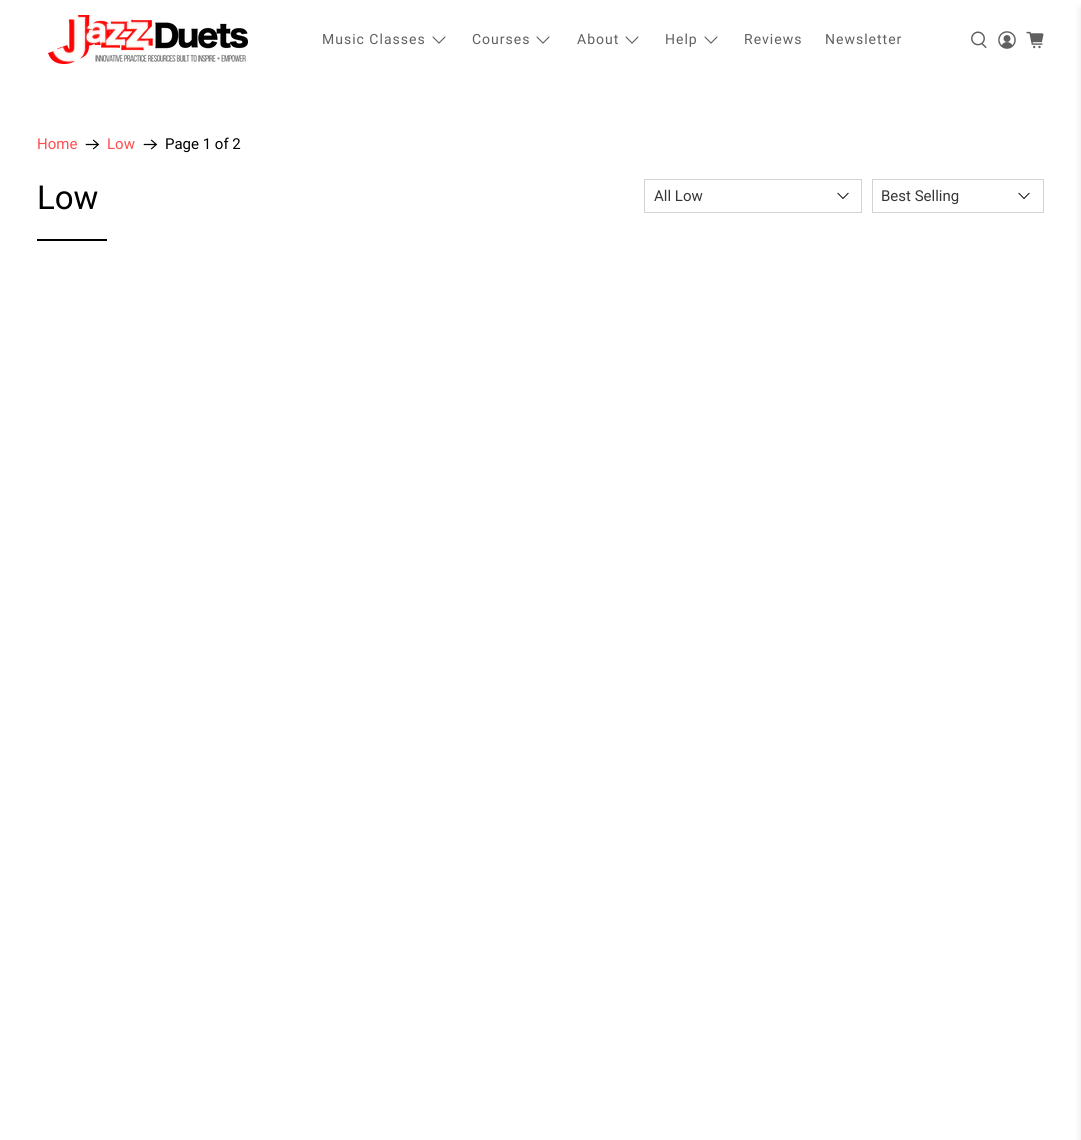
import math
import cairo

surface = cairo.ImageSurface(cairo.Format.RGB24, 1081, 1140)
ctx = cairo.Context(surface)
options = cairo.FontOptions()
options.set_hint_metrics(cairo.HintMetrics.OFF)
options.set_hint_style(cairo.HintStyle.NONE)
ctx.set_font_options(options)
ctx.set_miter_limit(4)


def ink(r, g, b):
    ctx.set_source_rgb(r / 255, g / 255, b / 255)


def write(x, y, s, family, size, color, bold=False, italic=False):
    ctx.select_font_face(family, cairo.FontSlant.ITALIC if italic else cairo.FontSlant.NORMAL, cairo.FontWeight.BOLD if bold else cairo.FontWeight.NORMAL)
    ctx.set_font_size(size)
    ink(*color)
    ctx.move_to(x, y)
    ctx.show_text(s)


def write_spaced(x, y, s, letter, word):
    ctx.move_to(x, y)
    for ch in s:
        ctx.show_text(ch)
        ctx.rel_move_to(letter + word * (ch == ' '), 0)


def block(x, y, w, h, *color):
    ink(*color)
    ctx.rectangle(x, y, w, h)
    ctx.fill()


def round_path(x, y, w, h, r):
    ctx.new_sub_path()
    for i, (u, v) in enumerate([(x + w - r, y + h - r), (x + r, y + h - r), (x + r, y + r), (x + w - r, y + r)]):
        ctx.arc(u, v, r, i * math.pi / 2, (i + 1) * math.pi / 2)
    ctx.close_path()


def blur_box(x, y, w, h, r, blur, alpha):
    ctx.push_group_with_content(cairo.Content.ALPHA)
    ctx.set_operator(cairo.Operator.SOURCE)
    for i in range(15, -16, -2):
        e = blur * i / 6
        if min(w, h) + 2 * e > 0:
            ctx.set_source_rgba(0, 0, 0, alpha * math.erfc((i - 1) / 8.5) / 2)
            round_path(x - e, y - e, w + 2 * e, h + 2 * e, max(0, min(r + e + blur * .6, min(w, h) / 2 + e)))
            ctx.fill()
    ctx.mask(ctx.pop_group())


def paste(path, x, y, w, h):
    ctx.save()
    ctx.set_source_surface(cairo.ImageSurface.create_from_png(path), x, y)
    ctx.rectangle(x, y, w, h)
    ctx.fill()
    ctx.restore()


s1 = dict(family="Roboto", size=15, color=(254, 77, 78))
s2 = dict(family="Roboto", size=15, color=(0, 0, 0))
s3 = dict(family="Roboto", size=33, color=(0, 0, 0))
s4 = dict(family="Roboto", size=15, color=(54, 54, 54))

ink(255, 255, 255)
ctx.paint()
paste("pic1.png", 48, 15, 200, 49)
ctx.select_font_face("Roboto")
ctx.set_font_size(14)
ink(96, 96, 96)
write_spaced(322, 44, "Music Classes", 1, 0)
paste("pic2.png", 432, 36, 14, 8)
write_spaced(472, 44, "Courses", 1, 0)
paste("pic2.png", 536, 36, 14, 8)
write_spaced(577, 44, "About", 1, 0)
paste("pic2.png", 625, 36, 14, 8)
write_spaced(665, 44, "Help", 1, 0)
paste("pic2.png", 704, 36, 14, 8)
write_spaced(744, 44, "Reviews", 1, 0)
write_spaced(825, 44, "Newsletter", 1, 0)
paste("pic3.png", 971, 31, 16, 18)
paste("pic4.png", 998, 31, 18, 18)
paste("pic5.png", 1026, 31, 18, 18)
ink(10, 10, 10)
blur_box(1081, 8, 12, 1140, 0, 4, 0.1)
write(37, 149, "Home", **s1)
paste("pic6.png", 85, 139, 15, 11)
write(107, 149, "Low", **s1)
paste("pic6.png", 143, 139, 15, 11)
write(165, 149, "Page 1 of 2", **s2)
write(37, 209, "Low", **s3)
block(37, 239, 70, 2, 0, 0, 0)
ctx.rectangle(644.5, 179.5, 217, 33)
ink(211, 211, 211)
ctx.set_line_width(1)
ctx.stroke()
write(654, 201, "All Low", **s4)
paste("pic7.png", 837, 192, 12, 7)
ctx.rectangle(872.5, 179.5, 171, 33)
ink(211, 211, 211)
ctx.stroke()
write(881, 201, "Best Selling", **s4)
paste("pic7.png", 1018, 192, 12, 7)
surface.write_to_png("screenshot.png")
